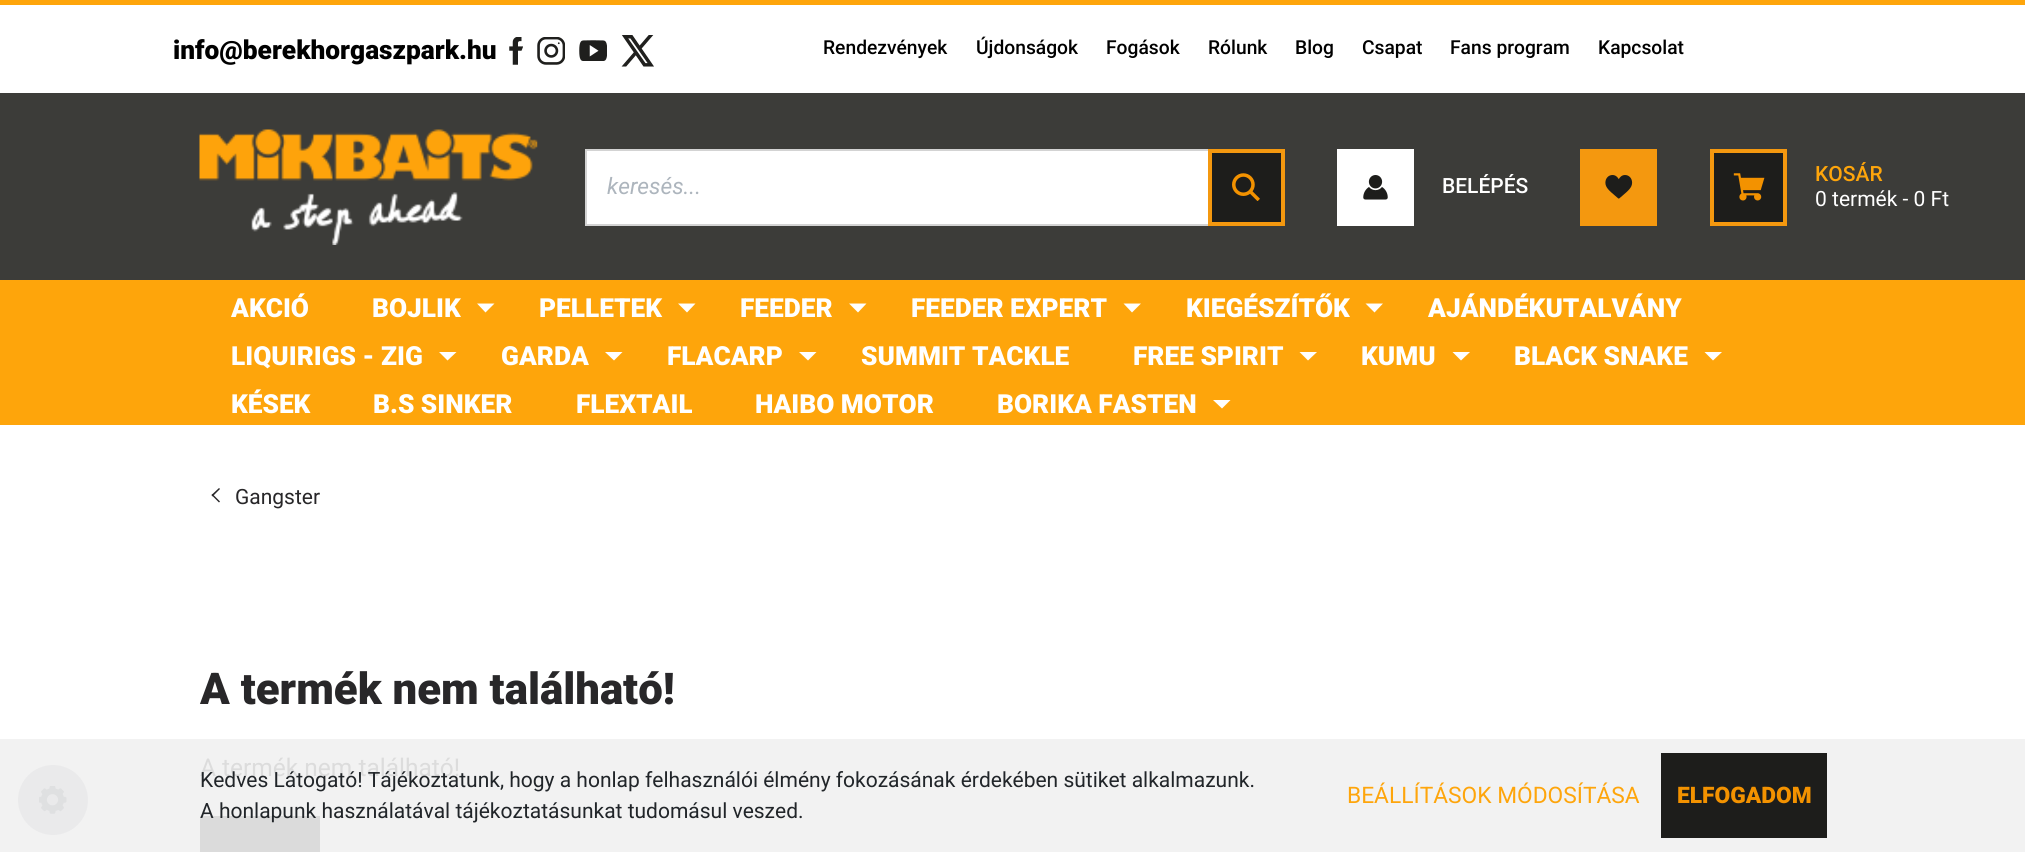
import math
import cairo

surface = cairo.ImageSurface(cairo.Format.RGB24, 2025, 852)
ctx = cairo.Context(surface)
options = cairo.FontOptions()
options.set_hint_metrics(cairo.HintMetrics.OFF)
options.set_hint_style(cairo.HintStyle.NONE)
ctx.set_font_options(options)
ctx.set_miter_limit(4)


def ink(r, g, b):
    ctx.set_source_rgb(r / 255, g / 255, b / 255)


def write(x, y, s, family, size, color, bold=False, italic=False):
    ctx.select_font_face(family, cairo.FontSlant.ITALIC if italic else cairo.FontSlant.NORMAL, cairo.FontWeight.BOLD if bold else cairo.FontWeight.NORMAL)
    ctx.set_font_size(size)
    ink(*color)
    ctx.move_to(x, y)
    ctx.show_text(s)


def block(x, y, w, h, *color):
    ink(*color)
    ctx.rectangle(x, y, w, h)
    ctx.fill()


def paste(path, x, y, w, h):
    ctx.save()
    ctx.set_source_surface(cairo.ImageSurface.create_from_png(path), x, y)
    ctx.rectangle(x, y, w, h)
    ctx.fill()
    ctx.restore()


s1 = dict(family="Roboto Black", size=26.25, color=(0, 0, 0))
s2 = dict(family="Roboto Medium", size=19.25, color=(0, 0, 0))
s3 = dict(family="Roboto", size=22.75, color=(173, 181, 189), italic=True)
s4 = dict(family="Roboto Medium", size=21, color=(255, 255, 255))
s5 = dict(family="Roboto Medium", size=21, color=(254, 165, 11))
s6 = dict(family="Roboto", size=21, color=(255, 255, 255))
s7 = dict(family="Roboto Black", size=26.25, color=(255, 255, 255))
s8 = dict(family="Roboto", size=21, color=(40, 39, 41))
s9 = dict(family="Roboto Black", size=43.75, color=(40, 39, 41))
s10 = dict(family="Roboto", size=24.5, color=(220, 220, 220))
s11 = dict(family="Roboto", size=21, color=(33, 37, 41))
s12 = dict(family="Roboto", size=22.75, color=(254, 165, 11))
s13 = dict(family="Roboto Black", size=22.75, color=(243, 146, 0))

ink(255, 255, 255)
ctx.paint()
block(0, 739, 2025, 113, 242, 242, 242)
block(0, 0, 2025, 5, 254, 165, 11)
write(173, 59, "info@berekhorgaszpark.hu", **s1)
paste("pic1.png", 509, 37, 14, 28)
paste("pic2.png", 537, 37, 28, 28)
paste("pic3.png", 579, 40, 28, 21)
paste("pic4.png", 621, 35, 33, 32)
write(823, 54, "Rendezvények", **s2)
write(976, 54, "Újdonságok", **s2)
write(1106, 54, "Fogások", **s2)
write(1208, 54, "Rólunk", **s2)
write(1295, 54, "Blog", **s2)
write(1362, 54, "Csapat", **s2)
write(1450, 54, "Fans program", **s2)
write(1598, 54, "Kapcsolat", **s2)
block(0, 93, 2025, 187, 60, 60, 57)
paste("pic5.png", 199, 129, 339, 116)
block(587, 151, 621, 73, 255, 255, 255)
ctx.rectangle(586, 150, 698, 75)
ink(211, 211, 211)
ctx.stroke()
write(607, 194, "keresés...", **s3)
ink(29, 29, 27)
ctx.rectangle(1210, 151, 73, 73)
ctx.fill_preserve()
ink(244, 152, 15)
ctx.set_line_width(4)
ctx.stroke()
paste("pic6.png", 1232, 173, 28, 28)
block(1337, 149, 77, 77, 255, 255, 255)
paste("pic7.png", 1363, 175, 25, 25)
write(1442, 193, "BELÉPÉS", **s4)
block(1580, 149, 77, 77, 244, 152, 15)
paste("pic8.png", 1605, 175, 28, 24)
ink(29, 29, 27)
ctx.rectangle(1712, 151, 73, 73)
ctx.fill_preserve()
ink(244, 152, 15)
ctx.stroke()
paste("pic9.png", 1733, 173, 32, 28)
write(1815, 181, "KOSÁR", **s5)
write(1815, 206, "0 termék - 0 Ft", **s6)
block(0, 280, 2025, 145, 254, 165, 11)
write(231, 317, "AKCIÓ", **s7)
write(372, 317, "BOJLIK", **s7)
ctx.new_path()
ctx.move_to(477, 303.5)
ctx.line_to(494.5, 303.5)
ctx.line_to(485.5, 312.5)
ctx.close_path()
ctx.fill()
write(539, 317, "PELLETEK", **s7)
ctx.new_path()
ctx.move_to(678, 303.5)
ctx.line_to(695.5, 303.5)
ctx.line_to(687, 312.5)
ctx.close_path()
ctx.fill()
write(740, 317, "FEEDER", **s7)
ctx.new_path()
ctx.move_to(849, 303.5)
ctx.line_to(866.5, 303.5)
ctx.line_to(858, 312.5)
ctx.close_path()
ctx.fill()
write(911, 317, "FEEDER EXPERT", **s7)
ctx.new_path()
ctx.move_to(1123.5, 303.5)
ctx.line_to(1141, 303.5)
ctx.line_to(1132, 312.5)
ctx.close_path()
ctx.fill()
write(1186, 317, "KIEGÉSZÍTŐK", **s7)
ctx.new_path()
ctx.move_to(1365.5, 303.5)
ctx.line_to(1383, 303.5)
ctx.line_to(1374.5, 312.5)
ctx.close_path()
ctx.fill()
write(1428, 317, "AJÁNDÉKUTALVÁNY", **s7)
write(231, 365, "LIQUIRIGS - ZIG", **s7)
ctx.new_path()
ctx.move_to(439, 352)
ctx.line_to(456.5, 352)
ctx.line_to(447.5, 360.5)
ctx.close_path()
ctx.fill()
write(501, 365, "GARDA", **s7)
ctx.new_path()
ctx.move_to(605, 352)
ctx.line_to(622.5, 352)
ctx.line_to(614, 360.5)
ctx.close_path()
ctx.fill()
write(667, 365, "FLACARP", **s7)
ctx.new_path()
ctx.move_to(799, 352)
ctx.line_to(816.5, 352)
ctx.line_to(808, 360.5)
ctx.close_path()
ctx.fill()
write(861, 365, "SUMMIT TACKLE", **s7)
write(1133, 365, "FREE SPIRIT", **s7)
ctx.new_path()
ctx.move_to(1299.5, 352)
ctx.line_to(1317, 352)
ctx.line_to(1308, 360.5)
ctx.close_path()
ctx.fill()
write(1361, 365, "KUMU", **s7)
ctx.new_path()
ctx.move_to(1452.5, 352)
ctx.line_to(1470, 352)
ctx.line_to(1461, 360.5)
ctx.close_path()
ctx.fill()
write(1514, 365, "BLACK SNAKE", **s7)
ctx.new_path()
ctx.move_to(1704.5, 352)
ctx.line_to(1722, 352)
ctx.line_to(1713, 360.5)
ctx.close_path()
ctx.fill()
write(231, 413, "KÉSEK", **s7)
write(373, 413, "B.S SINKER", **s7)
write(576, 413, "FLEXTAIL", **s7)
write(755, 413, "HAIBO MOTOR", **s7)
write(997, 413, "BORIKA FASTEN", **s7)
ctx.new_path()
ctx.move_to(1213, 400)
ctx.line_to(1230.5, 400)
ctx.line_to(1222, 408.5)
ctx.close_path()
ctx.fill()
ink(40, 39, 41)
ctx.new_path()
ctx.move_to(220, 501.5)
ctx.line_to(219, 502.5)
ctx.line_to(211.5, 495)
ctx.line_to(212.5, 494)
ctx.close_path()
ctx.fill()
ctx.new_path()
ctx.move_to(220, 489)
ctx.line_to(212.5, 496.5)
ctx.line_to(211.5, 495)
ctx.line_to(219, 488)
ctx.close_path()
ctx.fill()
write(235, 504, "Gangster", **s8)
write(200, 704, "A termék nem található!", **s9)
write(200, 776, "A termék nem található!", **s10)
block(200, 816, 120, 36, 219, 219, 219)
ink(234, 234, 235)
ctx.new_path()
ctx.arc(53, 800, 35, 0, 2 * math.pi)
ctx.fill()
paste("pic10.png", 39, 786, 28, 28)
write(200, 787, "Kedves Látogató! Tájékoztatunk, hogy a honlap felhasználói élmény fokozásának érdekében sütiket alkalmazunk.", **s11)
write(200, 818, "A honlapunk használatával tájékoztatásunkat tudomásul veszed.", **s11)
write(1347, 803, "BEÁLLÍTÁSOK MÓDOSÍTÁSA", **s12)
block(1661, 753, 166, 85, 29, 29, 27)
write(1677, 803, "ELFOGADOM", **s13)
surface.write_to_png("screenshot.png")
